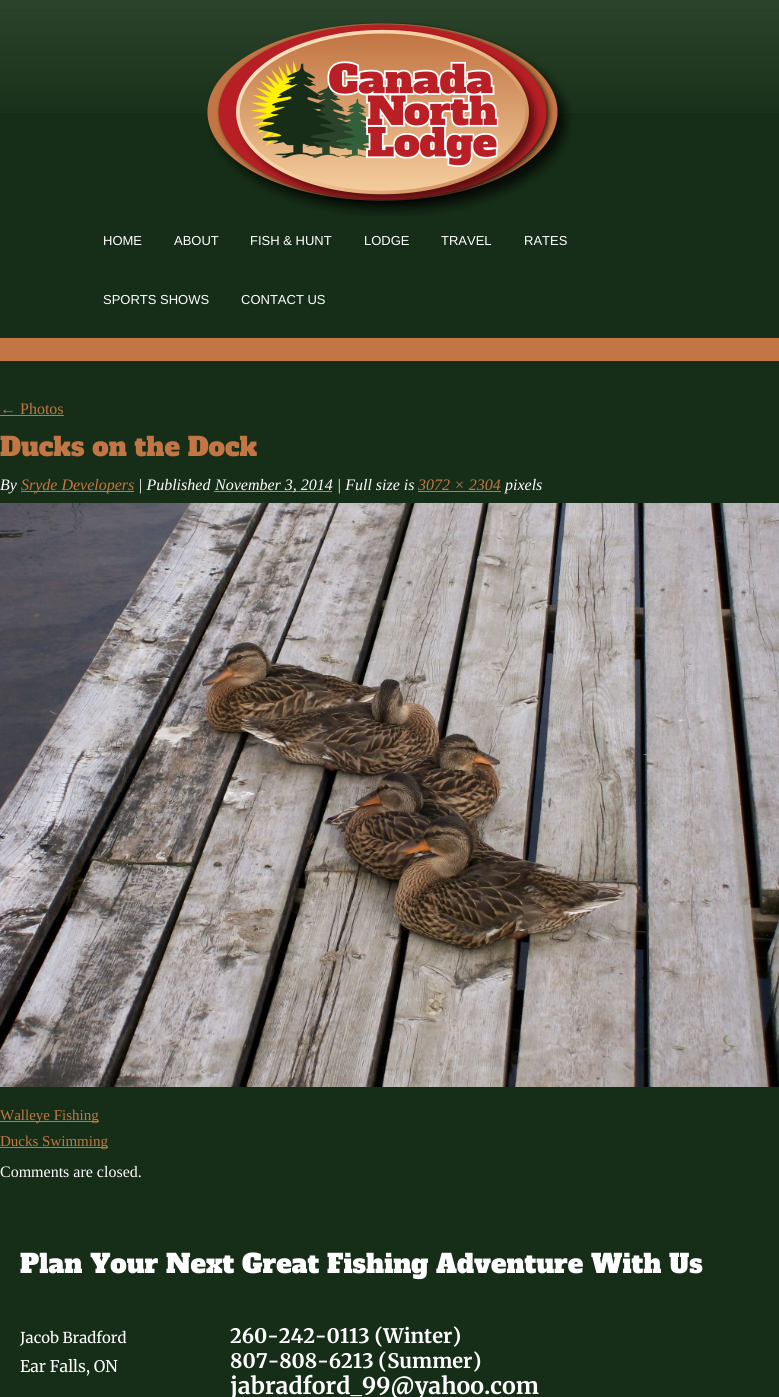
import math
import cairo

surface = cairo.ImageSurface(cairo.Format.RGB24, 779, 1397)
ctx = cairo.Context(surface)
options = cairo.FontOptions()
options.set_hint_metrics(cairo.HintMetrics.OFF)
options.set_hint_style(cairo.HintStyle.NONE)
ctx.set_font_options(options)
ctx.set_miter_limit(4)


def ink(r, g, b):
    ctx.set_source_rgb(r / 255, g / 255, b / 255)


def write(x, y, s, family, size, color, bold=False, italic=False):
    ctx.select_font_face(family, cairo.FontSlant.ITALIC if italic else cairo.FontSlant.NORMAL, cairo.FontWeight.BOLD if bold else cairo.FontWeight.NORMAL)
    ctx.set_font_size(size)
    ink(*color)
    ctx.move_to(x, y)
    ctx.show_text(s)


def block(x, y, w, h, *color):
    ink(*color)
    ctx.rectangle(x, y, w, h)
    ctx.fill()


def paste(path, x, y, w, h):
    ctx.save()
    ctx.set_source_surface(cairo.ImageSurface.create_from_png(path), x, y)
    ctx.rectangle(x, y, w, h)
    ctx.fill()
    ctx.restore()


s1 = dict(family="Liberation Sans", size=13, color=(255, 255, 255))
s2 = dict(family="Liberation Serif", size=16, color=(194, 118, 68))
s3 = dict(family="Alfa Slab One", size=26, color=(194, 118, 68))
s4 = dict(family="Liberation Serif", size=16, color=(255, 255, 255), italic=True)
s5 = dict(family="Liberation Serif", size=16, color=(194, 118, 68), italic=True)
s6 = dict(family="Liberation Serif", size=15, color=(194, 118, 68))
s7 = dict(family="Liberation Serif", size=16, color=(255, 255, 255))
s8 = dict(family="Alfa Slab One", size=26, color=(255, 255, 255))
s9 = dict(family="Merriweather", size=15, color=(255, 255, 255))
s10 = dict(family="Merriweather", size=16, color=(255, 255, 255))
s11 = dict(family="Merriweather", size=20, color=(255, 255, 255), bold=True)
s12 = dict(family="Merriweather", size=23, color=(255, 255, 255), bold=True)

ink(22, 46, 23)
ctx.paint()
paste("pic1.png", 0, 0, 779, 113)
block(0, 338, 779, 23, 194, 118, 68)
paste("pic2.png", 207, 22, 365, 194)
write(103, 245, "HOME", **s1)
write(174, 245, "ABOUT", **s1)
write(250, 245, "FISH & HUNT", **s1)
write(364, 245, "LODGE", **s1)
write(441, 245, "TRAVEL", **s1)
write(524, 245, "RATES", **s1)
write(103, 304, "SPORTS SHOWS", **s1)
write(241, 304, "CONTACT US", **s1)
write(0, 414, "← Photos", **s2)
block(0, 415, 64, 1, 194, 118, 68)
write(0, 456, "Ducks on the Dock", **s3)
write(0, 490, "By", **s4)
block(21, 491, 113, 1, 194, 118, 68)
write(21, 490, "Sryde Developers", **s5)
write(138, 490, "| Published", **s4)
ctx.new_path()
ctx.move_to(214.5, 491.5)
ctx.line_to(332.5, 491.5)
ctx.set_line_width(1)
ctx.set_dash([1, 1])
ctx.stroke()
write(215, 490, "November 3, 2014 | Full size is", **s4)
write(418, 490, "3072 × 2304", **s5)
block(418, 491, 83, 1, 194, 118, 68)
write(505, 490, "pixels", **s4)
paste("pic3.png", 0, 503, 779, 584)
block(0, 1121, 99, 1, 194, 118, 68)
write(0, 1120, "Walleye Fishing", **s6)
block(0, 1147, 108, 1, 194, 118, 68)
write(0, 1146, "Ducks Swimming", **s6)
write(0, 1177, "Comments are closed.", **s7)
write(20, 1273, "Plan Your Next Great Fishing Adventure With Us", **s8)
write(20, 1343, "Jacob Bradford", **s9)
write(20, 1372, "Ear Falls, ON", **s10)
write(230, 1343, "260-242-0113 (Winter)", **s11)
write(230, 1368, "807-808-6213 (Summer)", **s11)
write(230, 1394, "jabradford_99@yahoo.com", **s12)
surface.write_to_png("screenshot.png")
